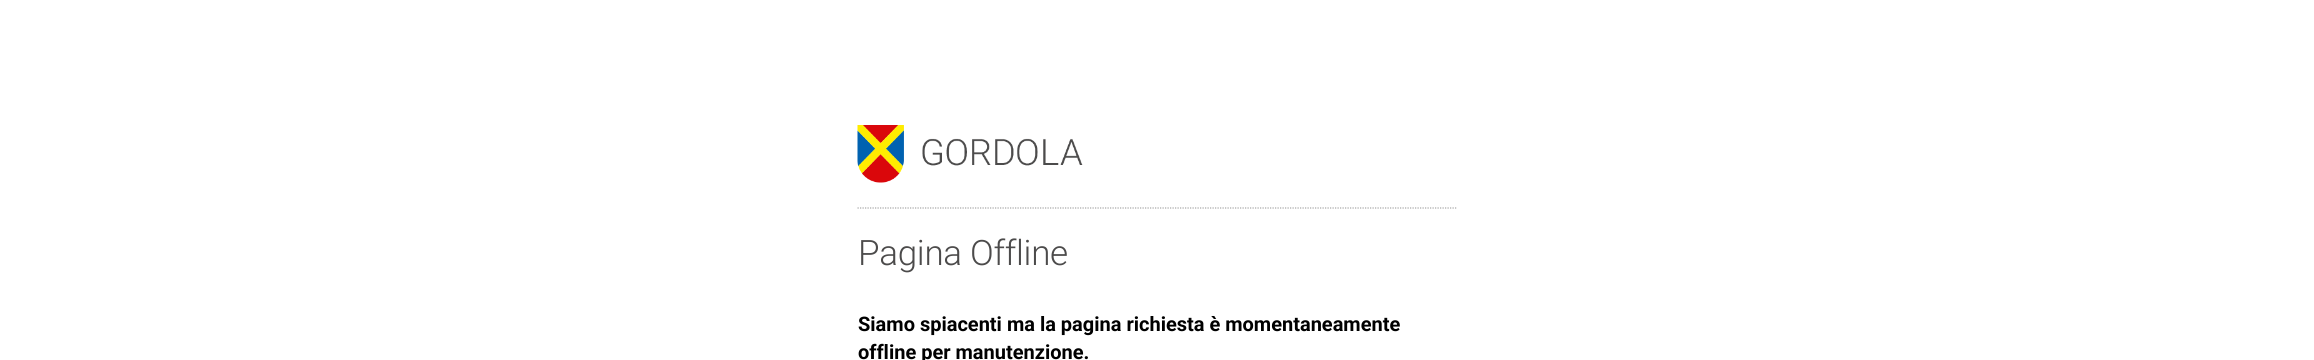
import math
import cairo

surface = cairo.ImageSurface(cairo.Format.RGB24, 2314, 360)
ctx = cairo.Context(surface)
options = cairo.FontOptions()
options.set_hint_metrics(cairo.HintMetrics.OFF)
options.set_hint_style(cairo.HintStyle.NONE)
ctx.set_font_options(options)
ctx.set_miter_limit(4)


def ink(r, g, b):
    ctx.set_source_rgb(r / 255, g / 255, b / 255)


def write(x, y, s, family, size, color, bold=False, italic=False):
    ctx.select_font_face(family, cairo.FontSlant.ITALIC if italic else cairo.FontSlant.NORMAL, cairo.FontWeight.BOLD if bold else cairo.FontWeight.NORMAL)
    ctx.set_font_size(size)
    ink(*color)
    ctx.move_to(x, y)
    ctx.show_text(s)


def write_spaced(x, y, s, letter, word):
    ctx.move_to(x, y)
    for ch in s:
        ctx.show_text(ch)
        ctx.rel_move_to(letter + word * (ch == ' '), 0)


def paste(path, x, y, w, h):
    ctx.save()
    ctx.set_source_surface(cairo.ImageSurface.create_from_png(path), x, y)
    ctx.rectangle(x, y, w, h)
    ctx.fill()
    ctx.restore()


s1 = dict(family="Roboto", size=20, color=(0, 0, 0), bold=True)

ink(255, 255, 255)
ctx.paint()
ctx.new_path()
ctx.move_to(857.5, 208)
ctx.line_to(1457.5, 208)
ink(165, 165, 165)
ctx.set_line_width(1.2)
ctx.set_dash([1.25, 1.25])
ctx.stroke()
paste("pic1.png", 857, 125, 226, 58)
ctx.select_font_face("Roboto Light")
ctx.set_font_size(35)
ink(76, 75, 75)
write_spaced(858, 265, "Pagina Offline", -0.3, 0)
write(858, 331, "Siamo spiacenti ma la pagina richiesta è momentaneamente", **s1)
write(858, 359, "offline per manutenzione.", **s1)
surface.write_to_png("screenshot.png")
